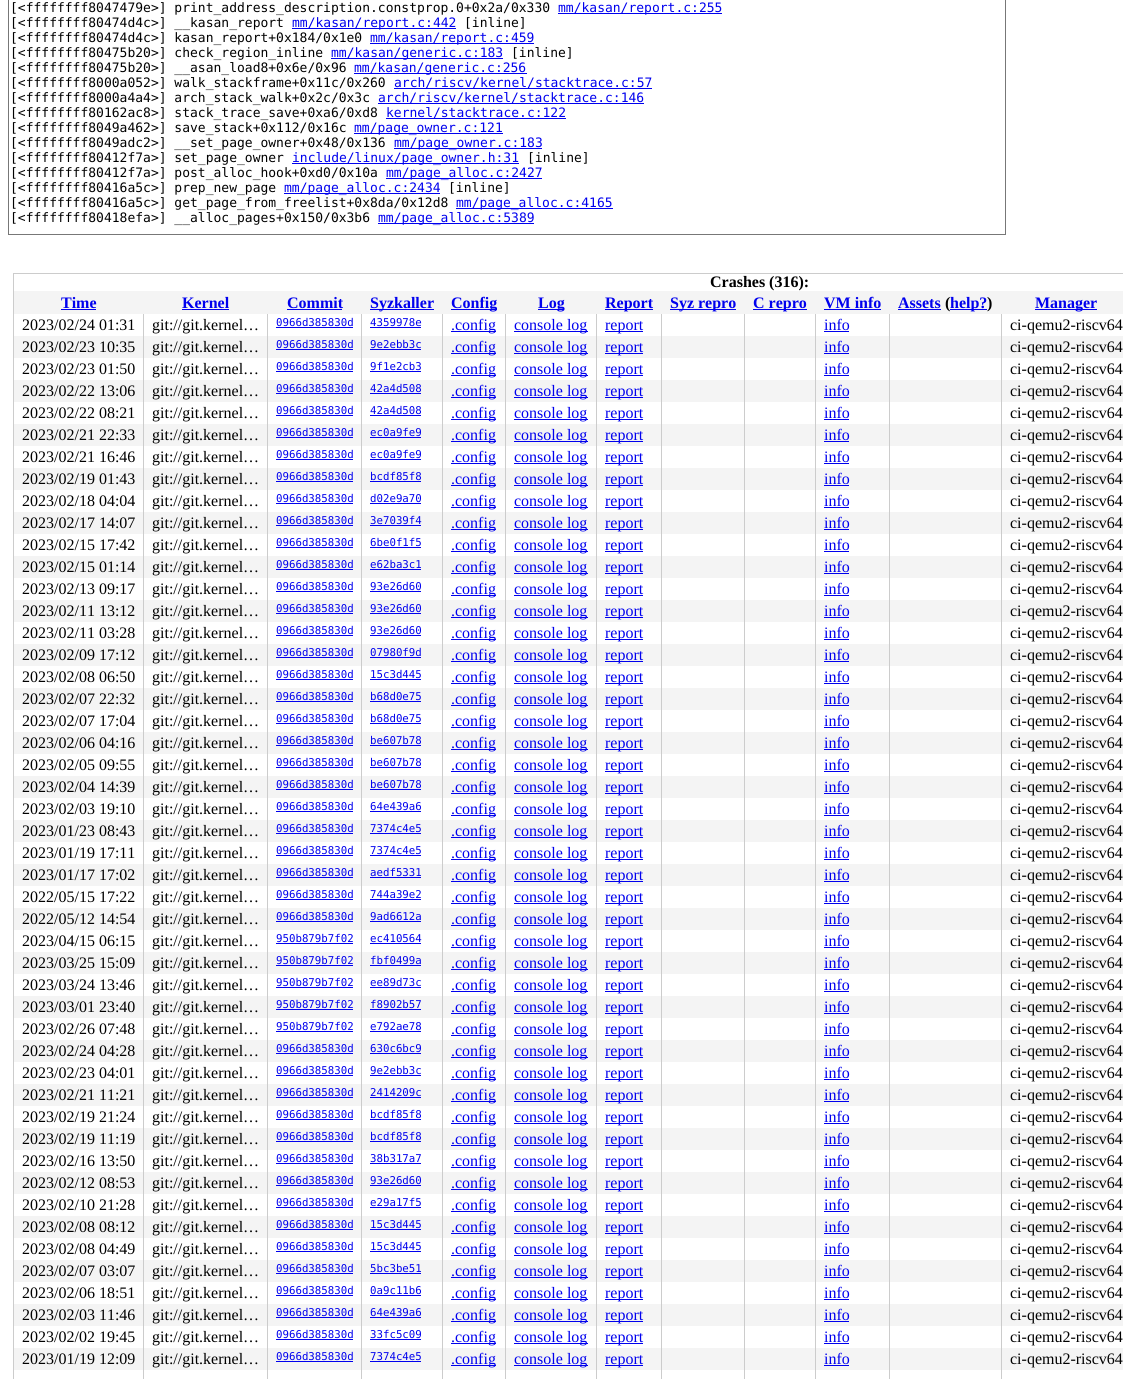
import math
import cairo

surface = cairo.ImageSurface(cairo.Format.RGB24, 1123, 1379)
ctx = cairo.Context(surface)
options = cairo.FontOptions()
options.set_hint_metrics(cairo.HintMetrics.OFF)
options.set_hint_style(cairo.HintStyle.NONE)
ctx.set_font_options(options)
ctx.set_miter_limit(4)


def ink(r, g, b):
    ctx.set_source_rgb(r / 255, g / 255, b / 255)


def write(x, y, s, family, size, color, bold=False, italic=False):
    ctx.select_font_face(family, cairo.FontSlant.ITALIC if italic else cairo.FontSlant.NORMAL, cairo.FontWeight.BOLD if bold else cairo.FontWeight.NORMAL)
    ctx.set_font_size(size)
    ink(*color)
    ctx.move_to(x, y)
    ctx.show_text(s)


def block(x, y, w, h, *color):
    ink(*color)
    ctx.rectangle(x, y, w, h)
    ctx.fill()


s1 = dict(family="DejaVu Sans Mono", size=13, color=(0, 0, 0))
s2 = dict(family="DejaVu Sans Mono", size=13, color=(0, 0, 238))
s3 = dict(family="Liberation Serif", size=16, color=(0, 0, 0), bold=True)
s4 = dict(family="Liberation Serif", size=16, color=(0, 0, 238), bold=True)
s5 = dict(family="Liberation Serif", size=16, color=(0, 0, 0))
s6 = dict(family="DejaVu Sans Mono", size=10.75, color=(0, 0, 238))
s7 = dict(family="Liberation Serif", size=16, color=(0, 0, 238))

ink(255, 255, 255)
ctx.paint()
ctx.rectangle(8.5, -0.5, 997, 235)
ink(119, 119, 119)
ctx.set_line_width(1)
ctx.stroke()
write(10, 12, "[<ffffffff8047479e>] print_address_description.constprop.0+0x2a/0x330", **s1)
block(558, 13, 164, 1, 0, 0, 238)
write(558, 12, "mm/kasan/report.c:255", **s2)
write(10, 27, "[<ffffffff80474d4c>] __kasan_report", **s1)
block(292, 28, 164, 1, 0, 0, 238)
write(292, 27, "mm/kasan/report.c:442", **s2)
write(464, 27, "[inline]", **s1)
write(10, 42, "[<ffffffff80474d4c>] kasan_report+0x184/0x1e0", **s1)
block(370, 43, 164, 1, 0, 0, 238)
write(370, 42, "mm/kasan/report.c:459", **s2)
write(10, 57, "[<ffffffff80475b20>] check_region_inline", **s1)
block(331, 58, 172, 1, 0, 0, 238)
write(331, 57, "mm/kasan/generic.c:183", **s2)
write(511, 57, "[inline]", **s1)
write(10, 72, "[<ffffffff80475b20>] __asan_load8+0x6e/0x96", **s1)
block(354, 73, 173, 1, 0, 0, 238)
write(354, 72, "mm/kasan/generic.c:256", **s2)
write(10, 87, "[<ffffffff8000a052>] walk_stackframe+0x11c/0x260", **s1)
block(394, 88, 258, 1, 0, 0, 238)
write(394, 87, "arch/riscv/kernel/stacktrace.c:57", **s2)
write(10, 102, "[<ffffffff8000a4a4>] arch_stack_walk+0x2c/0x3c", **s1)
block(378, 103, 266, 1, 0, 0, 238)
write(378, 102, "arch/riscv/kernel/stacktrace.c:146", **s2)
write(10, 117, "[<ffffffff80162ac8>] stack_trace_save+0xa6/0xd8", **s1)
block(386, 118, 180, 1, 0, 0, 238)
write(386, 117, "kernel/stacktrace.c:122", **s2)
write(10, 132, "[<ffffffff8049a462>] save_stack+0x112/0x16c", **s1)
block(354, 133, 149, 1, 0, 0, 238)
write(354, 132, "mm/page_owner.c:121", **s2)
write(10, 147, "[<ffffffff8049adc2>] __set_page_owner+0x48/0x136", **s1)
block(394, 148, 148, 1, 0, 0, 238)
write(394, 147, "mm/page_owner.c:183", **s2)
write(10, 162, "[<ffffffff80412f7a>] set_page_owner", **s1)
block(292, 163, 227, 1, 0, 0, 238)
write(292, 162, "include/linux/page_owner.h:31", **s2)
write(527, 162, "[inline]", **s1)
write(10, 177, "[<ffffffff80412f7a>] post_alloc_hook+0xd0/0x10a", **s1)
block(386, 178, 156, 1, 0, 0, 238)
write(386, 177, "mm/page_alloc.c:2427", **s2)
write(10, 192, "[<ffffffff80416a5c>] prep_new_page", **s1)
block(284, 193, 156, 1, 0, 0, 238)
write(284, 192, "mm/page_alloc.c:2434", **s2)
write(448, 192, "[inline]", **s1)
write(10, 207, "[<ffffffff80416a5c>] get_page_from_freelist+0x8da/0x12d8", **s1)
block(456, 208, 157, 1, 0, 0, 238)
write(456, 207, "mm/page_alloc.c:4165", **s2)
write(10, 222, "[<ffffffff80418efa>] __alloc_pages+0x150/0x3b6", **s1)
block(378, 223, 156, 1, 0, 0, 238)
write(378, 222, "mm/page_alloc.c:5389", **s2)
block(13, 273, 1110, 1, 204, 204, 204)
block(13, 273, 1, 1106, 204, 204, 204)
write(710, 287, "Crashes (316):", **s3)
block(14, 336, 1109, 22, 244, 244, 244)
block(14, 380, 1109, 22, 244, 244, 244)
block(14, 424, 1109, 22, 244, 244, 244)
block(14, 468, 1109, 22, 244, 244, 244)
block(14, 512, 1109, 22, 244, 244, 244)
block(14, 556, 1109, 22, 244, 244, 244)
block(14, 600, 1109, 22, 244, 244, 244)
block(14, 644, 1109, 22, 244, 244, 244)
block(14, 688, 1109, 22, 244, 244, 244)
block(14, 732, 1109, 22, 244, 244, 244)
block(14, 776, 1109, 22, 244, 244, 244)
block(14, 820, 1109, 22, 244, 244, 244)
block(14, 864, 1109, 22, 244, 244, 244)
block(14, 908, 1109, 22, 244, 244, 244)
block(14, 952, 1109, 22, 244, 244, 244)
block(14, 996, 1109, 22, 244, 244, 244)
block(14, 1040, 1109, 22, 244, 244, 244)
block(14, 1084, 1109, 22, 244, 244, 244)
block(14, 1128, 1109, 22, 244, 244, 244)
block(14, 1172, 1109, 22, 244, 244, 244)
block(14, 1216, 1109, 22, 244, 244, 244)
block(14, 1260, 1109, 22, 244, 244, 244)
block(14, 1304, 1109, 22, 244, 244, 244)
block(14, 1348, 1109, 22, 244, 244, 244)
block(143, 313, 1, 1066, 204, 204, 204)
block(267, 313, 1, 1066, 204, 204, 204)
block(361, 313, 1, 1066, 204, 204, 204)
block(442, 313, 1, 1066, 204, 204, 204)
block(505, 313, 1, 1066, 204, 204, 204)
block(596, 313, 1, 1066, 204, 204, 204)
block(661, 313, 1, 1066, 204, 204, 204)
block(744, 313, 1, 1066, 204, 204, 204)
block(815, 313, 1, 1066, 204, 204, 204)
block(889, 313, 1, 1066, 204, 204, 204)
block(1001, 313, 1, 1066, 204, 204, 204)
block(14, 291, 1109, 23, 244, 244, 244)
write(61, 308, "Time", **s4)
block(61, 309, 35, 1, 0, 0, 238)
write(182, 308, "Kernel", **s4)
block(182, 309, 47, 1, 0, 0, 238)
write(287, 308, "Commit", **s4)
block(287, 309, 55, 1, 0, 0, 238)
block(370, 309, 64, 1, 0, 0, 238)
write(370, 308, "Syzkaller", **s4)
block(451, 309, 46, 1, 0, 0, 238)
write(451, 308, "Config", **s4)
block(538, 309, 26, 1, 0, 0, 238)
write(538, 308, "Log", **s4)
block(605, 309, 48, 1, 0, 0, 238)
write(605, 308, "Report", **s4)
block(670, 309, 66, 1, 0, 0, 238)
write(670, 308, "Syz repro", **s4)
block(753, 309, 54, 1, 0, 0, 238)
write(753, 308, "C repro", **s4)
write(824, 308, "VM info", **s4)
block(824, 309, 57, 1, 0, 0, 238)
write(898, 308, "Assets", **s4)
block(898, 309, 43, 1, 0, 0, 238)
write(945, 308, "(", **s3)
block(950, 309, 37, 1, 0, 0, 238)
write(950, 308, "help?", **s4)
write(987, 308, ")", **s3)
block(1035, 309, 62, 1, 0, 0, 238)
write(1035, 308, "Manager", **s4)
write(22, 330, "2023/02/24 01:31", **s5)
write(152, 330, "git://git.kernel…", **s5)
write(276, 326, "0966d385830d", **s6)
block(276, 327, 77, 1, 0, 0, 238)
write(370, 326, "4359978e", **s6)
block(370, 327, 51, 1, 0, 0, 238)
block(451, 331, 45, 1, 0, 0, 238)
write(451, 330, ".config", **s7)
block(514, 331, 74, 1, 0, 0, 238)
write(514, 330, "console log", **s7)
block(605, 331, 38, 1, 0, 0, 238)
write(605, 330, "report", **s7)
write(824, 330, "info", **s7)
block(824, 331, 25, 1, 0, 0, 238)
write(1010, 330, "ci-qemu2-riscv64", **s5)
write(22, 352, "2023/02/23 10:35", **s5)
write(152, 352, "git://git.kernel…", **s5)
write(276, 348, "0966d385830d", **s6)
block(276, 349, 77, 1, 0, 0, 238)
write(370, 348, "9e2ebb3c", **s6)
block(370, 349, 51, 1, 0, 0, 238)
block(451, 353, 45, 1, 0, 0, 238)
write(451, 352, ".config", **s7)
block(514, 353, 74, 1, 0, 0, 238)
write(514, 352, "console log", **s7)
block(605, 353, 38, 1, 0, 0, 238)
write(605, 352, "report", **s7)
write(824, 352, "info", **s7)
block(824, 353, 25, 1, 0, 0, 238)
write(1010, 352, "ci-qemu2-riscv64", **s5)
write(22, 374, "2023/02/23 01:50", **s5)
write(152, 374, "git://git.kernel…", **s5)
write(276, 370, "0966d385830d", **s6)
block(276, 371, 77, 1, 0, 0, 238)
write(370, 370, "9f1e2cb3", **s6)
block(370, 371, 51, 1, 0, 0, 238)
block(451, 375, 45, 1, 0, 0, 238)
write(451, 374, ".config", **s7)
block(514, 375, 74, 1, 0, 0, 238)
write(514, 374, "console log", **s7)
block(605, 375, 38, 1, 0, 0, 238)
write(605, 374, "report", **s7)
write(824, 374, "info", **s7)
block(824, 375, 25, 1, 0, 0, 238)
write(1010, 374, "ci-qemu2-riscv64", **s5)
write(22, 396, "2023/02/22 13:06", **s5)
write(152, 396, "git://git.kernel…", **s5)
write(276, 392, "0966d385830d", **s6)
block(276, 393, 77, 1, 0, 0, 238)
write(370, 392, "42a4d508", **s6)
block(370, 393, 51, 1, 0, 0, 238)
block(451, 397, 45, 1, 0, 0, 238)
write(451, 396, ".config", **s7)
block(514, 397, 74, 1, 0, 0, 238)
write(514, 396, "console log", **s7)
block(605, 397, 38, 1, 0, 0, 238)
write(605, 396, "report", **s7)
write(824, 396, "info", **s7)
block(824, 397, 25, 1, 0, 0, 238)
write(1010, 396, "ci-qemu2-riscv64", **s5)
write(22, 418, "2023/02/22 08:21", **s5)
write(152, 418, "git://git.kernel…", **s5)
write(276, 414, "0966d385830d", **s6)
block(276, 415, 77, 1, 0, 0, 238)
write(370, 414, "42a4d508", **s6)
block(370, 415, 51, 1, 0, 0, 238)
block(451, 419, 45, 1, 0, 0, 238)
write(451, 418, ".config", **s7)
block(514, 419, 74, 1, 0, 0, 238)
write(514, 418, "console log", **s7)
block(605, 419, 38, 1, 0, 0, 238)
write(605, 418, "report", **s7)
write(824, 418, "info", **s7)
block(824, 419, 25, 1, 0, 0, 238)
write(1010, 418, "ci-qemu2-riscv64", **s5)
write(22, 440, "2023/02/21 22:33", **s5)
write(152, 440, "git://git.kernel…", **s5)
write(276, 436, "0966d385830d", **s6)
block(276, 437, 77, 1, 0, 0, 238)
write(370, 436, "ec0a9fe9", **s6)
block(370, 437, 51, 1, 0, 0, 238)
block(451, 441, 45, 1, 0, 0, 238)
write(451, 440, ".config", **s7)
block(514, 441, 74, 1, 0, 0, 238)
write(514, 440, "console log", **s7)
block(605, 441, 38, 1, 0, 0, 238)
write(605, 440, "report", **s7)
write(824, 440, "info", **s7)
block(824, 441, 25, 1, 0, 0, 238)
write(1010, 440, "ci-qemu2-riscv64", **s5)
write(22, 462, "2023/02/21 16:46", **s5)
write(152, 462, "git://git.kernel…", **s5)
write(276, 458, "0966d385830d", **s6)
block(276, 459, 77, 1, 0, 0, 238)
write(370, 458, "ec0a9fe9", **s6)
block(370, 459, 51, 1, 0, 0, 238)
block(451, 463, 45, 1, 0, 0, 238)
write(451, 462, ".config", **s7)
block(514, 463, 74, 1, 0, 0, 238)
write(514, 462, "console log", **s7)
block(605, 463, 38, 1, 0, 0, 238)
write(605, 462, "report", **s7)
write(824, 462, "info", **s7)
block(824, 463, 25, 1, 0, 0, 238)
write(1010, 462, "ci-qemu2-riscv64", **s5)
write(22, 484, "2023/02/19 01:43", **s5)
write(152, 484, "git://git.kernel…", **s5)
write(276, 480, "0966d385830d", **s6)
block(276, 481, 77, 1, 0, 0, 238)
write(370, 480, "bcdf85f8", **s6)
block(370, 481, 51, 1, 0, 0, 238)
block(451, 485, 45, 1, 0, 0, 238)
write(451, 484, ".config", **s7)
block(514, 485, 74, 1, 0, 0, 238)
write(514, 484, "console log", **s7)
block(605, 485, 38, 1, 0, 0, 238)
write(605, 484, "report", **s7)
write(824, 484, "info", **s7)
block(824, 485, 25, 1, 0, 0, 238)
write(1010, 484, "ci-qemu2-riscv64", **s5)
write(22, 506, "2023/02/18 04:04", **s5)
write(152, 506, "git://git.kernel…", **s5)
write(276, 502, "0966d385830d", **s6)
block(276, 503, 77, 1, 0, 0, 238)
write(370, 502, "d02e9a70", **s6)
block(370, 503, 51, 1, 0, 0, 238)
block(451, 507, 45, 1, 0, 0, 238)
write(451, 506, ".config", **s7)
block(514, 507, 74, 1, 0, 0, 238)
write(514, 506, "console log", **s7)
block(605, 507, 38, 1, 0, 0, 238)
write(605, 506, "report", **s7)
write(824, 506, "info", **s7)
block(824, 507, 25, 1, 0, 0, 238)
write(1010, 506, "ci-qemu2-riscv64", **s5)
write(22, 528, "2023/02/17 14:07", **s5)
write(152, 528, "git://git.kernel…", **s5)
write(276, 524, "0966d385830d", **s6)
block(276, 525, 77, 1, 0, 0, 238)
write(370, 524, "3e7039f4", **s6)
block(370, 525, 51, 1, 0, 0, 238)
block(451, 529, 45, 1, 0, 0, 238)
write(451, 528, ".config", **s7)
block(514, 529, 74, 1, 0, 0, 238)
write(514, 528, "console log", **s7)
block(605, 529, 38, 1, 0, 0, 238)
write(605, 528, "report", **s7)
write(824, 528, "info", **s7)
block(824, 529, 25, 1, 0, 0, 238)
write(1010, 528, "ci-qemu2-riscv64", **s5)
write(22, 550, "2023/02/15 17:42", **s5)
write(152, 550, "git://git.kernel…", **s5)
write(276, 546, "0966d385830d", **s6)
block(276, 547, 77, 1, 0, 0, 238)
write(370, 546, "6be0f1f5", **s6)
block(370, 547, 51, 1, 0, 0, 238)
block(451, 551, 45, 1, 0, 0, 238)
write(451, 550, ".config", **s7)
block(514, 551, 74, 1, 0, 0, 238)
write(514, 550, "console log", **s7)
block(605, 551, 38, 1, 0, 0, 238)
write(605, 550, "report", **s7)
write(824, 550, "info", **s7)
block(824, 551, 25, 1, 0, 0, 238)
write(1010, 550, "ci-qemu2-riscv64", **s5)
write(22, 572, "2023/02/15 01:14", **s5)
write(152, 572, "git://git.kernel…", **s5)
write(276, 568, "0966d385830d", **s6)
block(276, 569, 77, 1, 0, 0, 238)
write(370, 568, "e62ba3c1", **s6)
block(370, 569, 51, 1, 0, 0, 238)
block(451, 573, 45, 1, 0, 0, 238)
write(451, 572, ".config", **s7)
block(514, 573, 74, 1, 0, 0, 238)
write(514, 572, "console log", **s7)
block(605, 573, 38, 1, 0, 0, 238)
write(605, 572, "report", **s7)
write(824, 572, "info", **s7)
block(824, 573, 25, 1, 0, 0, 238)
write(1010, 572, "ci-qemu2-riscv64", **s5)
write(22, 594, "2023/02/13 09:17", **s5)
write(152, 594, "git://git.kernel…", **s5)
write(276, 590, "0966d385830d", **s6)
block(276, 591, 77, 1, 0, 0, 238)
write(370, 590, "93e26d60", **s6)
block(370, 591, 51, 1, 0, 0, 238)
block(451, 595, 45, 1, 0, 0, 238)
write(451, 594, ".config", **s7)
block(514, 595, 74, 1, 0, 0, 238)
write(514, 594, "console log", **s7)
block(605, 595, 38, 1, 0, 0, 238)
write(605, 594, "report", **s7)
write(824, 594, "info", **s7)
block(824, 595, 25, 1, 0, 0, 238)
write(1010, 594, "ci-qemu2-riscv64", **s5)
write(22, 616, "2023/02/11 13:12", **s5)
write(152, 616, "git://git.kernel…", **s5)
write(276, 612, "0966d385830d", **s6)
block(276, 613, 77, 1, 0, 0, 238)
write(370, 612, "93e26d60", **s6)
block(370, 613, 51, 1, 0, 0, 238)
block(451, 617, 45, 1, 0, 0, 238)
write(451, 616, ".config", **s7)
block(514, 617, 74, 1, 0, 0, 238)
write(514, 616, "console log", **s7)
block(605, 617, 38, 1, 0, 0, 238)
write(605, 616, "report", **s7)
write(824, 616, "info", **s7)
block(824, 617, 25, 1, 0, 0, 238)
write(1010, 616, "ci-qemu2-riscv64", **s5)
write(22, 638, "2023/02/11 03:28", **s5)
write(152, 638, "git://git.kernel…", **s5)
write(276, 634, "0966d385830d", **s6)
block(276, 635, 77, 1, 0, 0, 238)
write(370, 634, "93e26d60", **s6)
block(370, 635, 51, 1, 0, 0, 238)
block(451, 639, 45, 1, 0, 0, 238)
write(451, 638, ".config", **s7)
block(514, 639, 74, 1, 0, 0, 238)
write(514, 638, "console log", **s7)
block(605, 639, 38, 1, 0, 0, 238)
write(605, 638, "report", **s7)
write(824, 638, "info", **s7)
block(824, 639, 25, 1, 0, 0, 238)
write(1010, 638, "ci-qemu2-riscv64", **s5)
write(22, 660, "2023/02/09 17:12", **s5)
write(152, 660, "git://git.kernel…", **s5)
write(276, 656, "0966d385830d", **s6)
block(276, 657, 77, 1, 0, 0, 238)
write(370, 656, "07980f9d", **s6)
block(370, 657, 51, 1, 0, 0, 238)
block(451, 661, 45, 1, 0, 0, 238)
write(451, 660, ".config", **s7)
block(514, 661, 74, 1, 0, 0, 238)
write(514, 660, "console log", **s7)
block(605, 661, 38, 1, 0, 0, 238)
write(605, 660, "report", **s7)
write(824, 660, "info", **s7)
block(824, 661, 25, 1, 0, 0, 238)
write(1010, 660, "ci-qemu2-riscv64", **s5)
write(22, 682, "2023/02/08 06:50", **s5)
write(152, 682, "git://git.kernel…", **s5)
write(276, 678, "0966d385830d", **s6)
block(276, 679, 77, 1, 0, 0, 238)
write(370, 678, "15c3d445", **s6)
block(370, 679, 51, 1, 0, 0, 238)
block(451, 683, 45, 1, 0, 0, 238)
write(451, 682, ".config", **s7)
block(514, 683, 74, 1, 0, 0, 238)
write(514, 682, "console log", **s7)
block(605, 683, 38, 1, 0, 0, 238)
write(605, 682, "report", **s7)
write(824, 682, "info", **s7)
block(824, 683, 25, 1, 0, 0, 238)
write(1010, 682, "ci-qemu2-riscv64", **s5)
write(22, 704, "2023/02/07 22:32", **s5)
write(152, 704, "git://git.kernel…", **s5)
write(276, 700, "0966d385830d", **s6)
block(276, 701, 77, 1, 0, 0, 238)
write(370, 700, "b68d0e75", **s6)
block(370, 701, 51, 1, 0, 0, 238)
block(451, 705, 45, 1, 0, 0, 238)
write(451, 704, ".config", **s7)
block(514, 705, 74, 1, 0, 0, 238)
write(514, 704, "console log", **s7)
block(605, 705, 38, 1, 0, 0, 238)
write(605, 704, "report", **s7)
write(824, 704, "info", **s7)
block(824, 705, 25, 1, 0, 0, 238)
write(1010, 704, "ci-qemu2-riscv64", **s5)
write(22, 726, "2023/02/07 17:04", **s5)
write(152, 726, "git://git.kernel…", **s5)
write(276, 722, "0966d385830d", **s6)
block(276, 723, 77, 1, 0, 0, 238)
write(370, 722, "b68d0e75", **s6)
block(370, 723, 51, 1, 0, 0, 238)
block(451, 727, 45, 1, 0, 0, 238)
write(451, 726, ".config", **s7)
block(514, 727, 74, 1, 0, 0, 238)
write(514, 726, "console log", **s7)
block(605, 727, 38, 1, 0, 0, 238)
write(605, 726, "report", **s7)
write(824, 726, "info", **s7)
block(824, 727, 25, 1, 0, 0, 238)
write(1010, 726, "ci-qemu2-riscv64", **s5)
write(22, 748, "2023/02/06 04:16", **s5)
write(152, 748, "git://git.kernel…", **s5)
write(276, 744, "0966d385830d", **s6)
block(276, 745, 77, 1, 0, 0, 238)
write(370, 744, "be607b78", **s6)
block(370, 745, 51, 1, 0, 0, 238)
block(451, 749, 45, 1, 0, 0, 238)
write(451, 748, ".config", **s7)
block(514, 749, 74, 1, 0, 0, 238)
write(514, 748, "console log", **s7)
block(605, 749, 38, 1, 0, 0, 238)
write(605, 748, "report", **s7)
write(824, 748, "info", **s7)
block(824, 749, 25, 1, 0, 0, 238)
write(1010, 748, "ci-qemu2-riscv64", **s5)
write(22, 770, "2023/02/05 09:55", **s5)
write(152, 770, "git://git.kernel…", **s5)
write(276, 766, "0966d385830d", **s6)
block(276, 767, 77, 1, 0, 0, 238)
write(370, 766, "be607b78", **s6)
block(370, 767, 51, 1, 0, 0, 238)
block(451, 771, 45, 1, 0, 0, 238)
write(451, 770, ".config", **s7)
block(514, 771, 74, 1, 0, 0, 238)
write(514, 770, "console log", **s7)
block(605, 771, 38, 1, 0, 0, 238)
write(605, 770, "report", **s7)
write(824, 770, "info", **s7)
block(824, 771, 25, 1, 0, 0, 238)
write(1010, 770, "ci-qemu2-riscv64", **s5)
write(22, 792, "2023/02/04 14:39", **s5)
write(152, 792, "git://git.kernel…", **s5)
write(276, 788, "0966d385830d", **s6)
block(276, 789, 77, 1, 0, 0, 238)
write(370, 788, "be607b78", **s6)
block(370, 789, 51, 1, 0, 0, 238)
block(451, 793, 45, 1, 0, 0, 238)
write(451, 792, ".config", **s7)
block(514, 793, 74, 1, 0, 0, 238)
write(514, 792, "console log", **s7)
block(605, 793, 38, 1, 0, 0, 238)
write(605, 792, "report", **s7)
write(824, 792, "info", **s7)
block(824, 793, 25, 1, 0, 0, 238)
write(1010, 792, "ci-qemu2-riscv64", **s5)
write(22, 814, "2023/02/03 19:10", **s5)
write(152, 814, "git://git.kernel…", **s5)
write(276, 810, "0966d385830d", **s6)
block(276, 811, 77, 1, 0, 0, 238)
write(370, 810, "64e439a6", **s6)
block(370, 811, 51, 1, 0, 0, 238)
block(451, 815, 45, 1, 0, 0, 238)
write(451, 814, ".config", **s7)
block(514, 815, 74, 1, 0, 0, 238)
write(514, 814, "console log", **s7)
block(605, 815, 38, 1, 0, 0, 238)
write(605, 814, "report", **s7)
write(824, 814, "info", **s7)
block(824, 815, 25, 1, 0, 0, 238)
write(1010, 814, "ci-qemu2-riscv64", **s5)
write(22, 836, "2023/01/23 08:43", **s5)
write(152, 836, "git://git.kernel…", **s5)
write(276, 832, "0966d385830d", **s6)
block(276, 833, 77, 1, 0, 0, 238)
write(370, 832, "7374c4e5", **s6)
block(370, 833, 51, 1, 0, 0, 238)
block(451, 837, 45, 1, 0, 0, 238)
write(451, 836, ".config", **s7)
block(514, 837, 74, 1, 0, 0, 238)
write(514, 836, "console log", **s7)
block(605, 837, 38, 1, 0, 0, 238)
write(605, 836, "report", **s7)
write(824, 836, "info", **s7)
block(824, 837, 25, 1, 0, 0, 238)
write(1010, 836, "ci-qemu2-riscv64", **s5)
write(22, 858, "2023/01/19 17:11", **s5)
write(152, 858, "git://git.kernel…", **s5)
write(276, 854, "0966d385830d", **s6)
block(276, 855, 77, 1, 0, 0, 238)
write(370, 854, "7374c4e5", **s6)
block(370, 855, 51, 1, 0, 0, 238)
block(451, 859, 45, 1, 0, 0, 238)
write(451, 858, ".config", **s7)
block(514, 859, 74, 1, 0, 0, 238)
write(514, 858, "console log", **s7)
block(605, 859, 38, 1, 0, 0, 238)
write(605, 858, "report", **s7)
write(824, 858, "info", **s7)
block(824, 859, 25, 1, 0, 0, 238)
write(1010, 858, "ci-qemu2-riscv64", **s5)
write(22, 880, "2023/01/17 17:02", **s5)
write(152, 880, "git://git.kernel…", **s5)
write(276, 876, "0966d385830d", **s6)
block(276, 877, 77, 1, 0, 0, 238)
write(370, 876, "aedf5331", **s6)
block(370, 877, 51, 1, 0, 0, 238)
block(451, 881, 45, 1, 0, 0, 238)
write(451, 880, ".config", **s7)
block(514, 881, 74, 1, 0, 0, 238)
write(514, 880, "console log", **s7)
block(605, 881, 38, 1, 0, 0, 238)
write(605, 880, "report", **s7)
write(824, 880, "info", **s7)
block(824, 881, 25, 1, 0, 0, 238)
write(1010, 880, "ci-qemu2-riscv64", **s5)
write(22, 902, "2022/05/15 17:22", **s5)
write(152, 902, "git://git.kernel…", **s5)
write(276, 898, "0966d385830d", **s6)
block(276, 899, 77, 1, 0, 0, 238)
write(370, 898, "744a39e2", **s6)
block(370, 899, 51, 1, 0, 0, 238)
block(451, 903, 45, 1, 0, 0, 238)
write(451, 902, ".config", **s7)
block(514, 903, 74, 1, 0, 0, 238)
write(514, 902, "console log", **s7)
block(605, 903, 38, 1, 0, 0, 238)
write(605, 902, "report", **s7)
write(824, 902, "info", **s7)
block(824, 903, 25, 1, 0, 0, 238)
write(1010, 902, "ci-qemu2-riscv64", **s5)
write(22, 924, "2022/05/12 14:54", **s5)
write(152, 924, "git://git.kernel…", **s5)
write(276, 920, "0966d385830d", **s6)
block(276, 921, 77, 1, 0, 0, 238)
write(370, 920, "9ad6612a", **s6)
block(370, 921, 51, 1, 0, 0, 238)
block(451, 925, 45, 1, 0, 0, 238)
write(451, 924, ".config", **s7)
block(514, 925, 74, 1, 0, 0, 238)
write(514, 924, "console log", **s7)
block(605, 925, 38, 1, 0, 0, 238)
write(605, 924, "report", **s7)
write(824, 924, "info", **s7)
block(824, 925, 25, 1, 0, 0, 238)
write(1010, 924, "ci-qemu2-riscv64", **s5)
write(22, 946, "2023/04/15 06:15", **s5)
write(152, 946, "git://git.kernel…", **s5)
write(276, 942, "950b879b7f02", **s6)
block(276, 943, 77, 1, 0, 0, 238)
write(370, 942, "ec410564", **s6)
block(370, 943, 51, 1, 0, 0, 238)
block(451, 947, 45, 1, 0, 0, 238)
write(451, 946, ".config", **s7)
block(514, 947, 74, 1, 0, 0, 238)
write(514, 946, "console log", **s7)
block(605, 947, 38, 1, 0, 0, 238)
write(605, 946, "report", **s7)
write(824, 946, "info", **s7)
block(824, 947, 25, 1, 0, 0, 238)
write(1010, 946, "ci-qemu2-riscv64", **s5)
write(22, 968, "2023/03/25 15:09", **s5)
write(152, 968, "git://git.kernel…", **s5)
write(276, 964, "950b879b7f02", **s6)
block(276, 965, 77, 1, 0, 0, 238)
write(370, 964, "fbf0499a", **s6)
block(370, 965, 51, 1, 0, 0, 238)
block(451, 969, 45, 1, 0, 0, 238)
write(451, 968, ".config", **s7)
block(514, 969, 74, 1, 0, 0, 238)
write(514, 968, "console log", **s7)
block(605, 969, 38, 1, 0, 0, 238)
write(605, 968, "report", **s7)
write(824, 968, "info", **s7)
block(824, 969, 25, 1, 0, 0, 238)
write(1010, 968, "ci-qemu2-riscv64", **s5)
write(22, 990, "2023/03/24 13:46", **s5)
write(152, 990, "git://git.kernel…", **s5)
write(276, 986, "950b879b7f02", **s6)
block(276, 987, 77, 1, 0, 0, 238)
write(370, 986, "ee89d73c", **s6)
block(370, 987, 51, 1, 0, 0, 238)
block(451, 991, 45, 1, 0, 0, 238)
write(451, 990, ".config", **s7)
block(514, 991, 74, 1, 0, 0, 238)
write(514, 990, "console log", **s7)
block(605, 991, 38, 1, 0, 0, 238)
write(605, 990, "report", **s7)
write(824, 990, "info", **s7)
block(824, 991, 25, 1, 0, 0, 238)
write(1010, 990, "ci-qemu2-riscv64", **s5)
write(22, 1012, "2023/03/01 23:40", **s5)
write(152, 1012, "git://git.kernel…", **s5)
write(276, 1008, "950b879b7f02", **s6)
block(276, 1009, 77, 1, 0, 0, 238)
write(370, 1008, "f8902b57", **s6)
block(370, 1009, 51, 1, 0, 0, 238)
block(451, 1013, 45, 1, 0, 0, 238)
write(451, 1012, ".config", **s7)
block(514, 1013, 74, 1, 0, 0, 238)
write(514, 1012, "console log", **s7)
block(605, 1013, 38, 1, 0, 0, 238)
write(605, 1012, "report", **s7)
write(824, 1012, "info", **s7)
block(824, 1013, 25, 1, 0, 0, 238)
write(1010, 1012, "ci-qemu2-riscv64", **s5)
write(22, 1034, "2023/02/26 07:48", **s5)
write(152, 1034, "git://git.kernel…", **s5)
write(276, 1030, "950b879b7f02", **s6)
block(276, 1031, 77, 1, 0, 0, 238)
write(370, 1030, "e792ae78", **s6)
block(370, 1031, 51, 1, 0, 0, 238)
block(451, 1035, 45, 1, 0, 0, 238)
write(451, 1034, ".config", **s7)
block(514, 1035, 74, 1, 0, 0, 238)
write(514, 1034, "console log", **s7)
block(605, 1035, 38, 1, 0, 0, 238)
write(605, 1034, "report", **s7)
write(824, 1034, "info", **s7)
block(824, 1035, 25, 1, 0, 0, 238)
write(1010, 1034, "ci-qemu2-riscv64", **s5)
write(22, 1056, "2023/02/24 04:28", **s5)
write(152, 1056, "git://git.kernel…", **s5)
write(276, 1052, "0966d385830d", **s6)
block(276, 1053, 77, 1, 0, 0, 238)
write(370, 1052, "630c6bc9", **s6)
block(370, 1053, 51, 1, 0, 0, 238)
block(451, 1057, 45, 1, 0, 0, 238)
write(451, 1056, ".config", **s7)
block(514, 1057, 74, 1, 0, 0, 238)
write(514, 1056, "console log", **s7)
block(605, 1057, 38, 1, 0, 0, 238)
write(605, 1056, "report", **s7)
write(824, 1056, "info", **s7)
block(824, 1057, 25, 1, 0, 0, 238)
write(1010, 1056, "ci-qemu2-riscv64", **s5)
write(22, 1078, "2023/02/23 04:01", **s5)
write(152, 1078, "git://git.kernel…", **s5)
write(276, 1074, "0966d385830d", **s6)
block(276, 1075, 77, 1, 0, 0, 238)
write(370, 1074, "9e2ebb3c", **s6)
block(370, 1075, 51, 1, 0, 0, 238)
block(451, 1079, 45, 1, 0, 0, 238)
write(451, 1078, ".config", **s7)
block(514, 1079, 74, 1, 0, 0, 238)
write(514, 1078, "console log", **s7)
block(605, 1079, 38, 1, 0, 0, 238)
write(605, 1078, "report", **s7)
write(824, 1078, "info", **s7)
block(824, 1079, 25, 1, 0, 0, 238)
write(1010, 1078, "ci-qemu2-riscv64", **s5)
write(22, 1100, "2023/02/21 11:21", **s5)
write(152, 1100, "git://git.kernel…", **s5)
write(276, 1096, "0966d385830d", **s6)
block(276, 1097, 77, 1, 0, 0, 238)
write(370, 1096, "2414209c", **s6)
block(370, 1097, 51, 1, 0, 0, 238)
block(451, 1101, 45, 1, 0, 0, 238)
write(451, 1100, ".config", **s7)
block(514, 1101, 74, 1, 0, 0, 238)
write(514, 1100, "console log", **s7)
block(605, 1101, 38, 1, 0, 0, 238)
write(605, 1100, "report", **s7)
write(824, 1100, "info", **s7)
block(824, 1101, 25, 1, 0, 0, 238)
write(1010, 1100, "ci-qemu2-riscv64", **s5)
write(22, 1122, "2023/02/19 21:24", **s5)
write(152, 1122, "git://git.kernel…", **s5)
write(276, 1118, "0966d385830d", **s6)
block(276, 1119, 77, 1, 0, 0, 238)
write(370, 1118, "bcdf85f8", **s6)
block(370, 1119, 51, 1, 0, 0, 238)
block(451, 1123, 45, 1, 0, 0, 238)
write(451, 1122, ".config", **s7)
block(514, 1123, 74, 1, 0, 0, 238)
write(514, 1122, "console log", **s7)
block(605, 1123, 38, 1, 0, 0, 238)
write(605, 1122, "report", **s7)
write(824, 1122, "info", **s7)
block(824, 1123, 25, 1, 0, 0, 238)
write(1010, 1122, "ci-qemu2-riscv64", **s5)
write(22, 1144, "2023/02/19 11:19", **s5)
write(152, 1144, "git://git.kernel…", **s5)
write(276, 1140, "0966d385830d", **s6)
block(276, 1141, 77, 1, 0, 0, 238)
write(370, 1140, "bcdf85f8", **s6)
block(370, 1141, 51, 1, 0, 0, 238)
block(451, 1145, 45, 1, 0, 0, 238)
write(451, 1144, ".config", **s7)
block(514, 1145, 74, 1, 0, 0, 238)
write(514, 1144, "console log", **s7)
block(605, 1145, 38, 1, 0, 0, 238)
write(605, 1144, "report", **s7)
write(824, 1144, "info", **s7)
block(824, 1145, 25, 1, 0, 0, 238)
write(1010, 1144, "ci-qemu2-riscv64", **s5)
write(22, 1166, "2023/02/16 13:50", **s5)
write(152, 1166, "git://git.kernel…", **s5)
write(276, 1162, "0966d385830d", **s6)
block(276, 1163, 77, 1, 0, 0, 238)
write(370, 1162, "38b317a7", **s6)
block(370, 1163, 51, 1, 0, 0, 238)
block(451, 1167, 45, 1, 0, 0, 238)
write(451, 1166, ".config", **s7)
block(514, 1167, 74, 1, 0, 0, 238)
write(514, 1166, "console log", **s7)
block(605, 1167, 38, 1, 0, 0, 238)
write(605, 1166, "report", **s7)
write(824, 1166, "info", **s7)
block(824, 1167, 25, 1, 0, 0, 238)
write(1010, 1166, "ci-qemu2-riscv64", **s5)
write(22, 1188, "2023/02/12 08:53", **s5)
write(152, 1188, "git://git.kernel…", **s5)
write(276, 1184, "0966d385830d", **s6)
block(276, 1185, 77, 1, 0, 0, 238)
write(370, 1184, "93e26d60", **s6)
block(370, 1185, 51, 1, 0, 0, 238)
block(451, 1189, 45, 1, 0, 0, 238)
write(451, 1188, ".config", **s7)
block(514, 1189, 74, 1, 0, 0, 238)
write(514, 1188, "console log", **s7)
block(605, 1189, 38, 1, 0, 0, 238)
write(605, 1188, "report", **s7)
write(824, 1188, "info", **s7)
block(824, 1189, 25, 1, 0, 0, 238)
write(1010, 1188, "ci-qemu2-riscv64", **s5)
write(22, 1210, "2023/02/10 21:28", **s5)
write(152, 1210, "git://git.kernel…", **s5)
write(276, 1206, "0966d385830d", **s6)
block(276, 1207, 77, 1, 0, 0, 238)
write(370, 1206, "e29a17f5", **s6)
block(370, 1207, 51, 1, 0, 0, 238)
block(451, 1211, 45, 1, 0, 0, 238)
write(451, 1210, ".config", **s7)
block(514, 1211, 74, 1, 0, 0, 238)
write(514, 1210, "console log", **s7)
block(605, 1211, 38, 1, 0, 0, 238)
write(605, 1210, "report", **s7)
write(824, 1210, "info", **s7)
block(824, 1211, 25, 1, 0, 0, 238)
write(1010, 1210, "ci-qemu2-riscv64", **s5)
write(22, 1232, "2023/02/08 08:12", **s5)
write(152, 1232, "git://git.kernel…", **s5)
write(276, 1228, "0966d385830d", **s6)
block(276, 1229, 77, 1, 0, 0, 238)
write(370, 1228, "15c3d445", **s6)
block(370, 1229, 51, 1, 0, 0, 238)
block(451, 1233, 45, 1, 0, 0, 238)
write(451, 1232, ".config", **s7)
block(514, 1233, 74, 1, 0, 0, 238)
write(514, 1232, "console log", **s7)
block(605, 1233, 38, 1, 0, 0, 238)
write(605, 1232, "report", **s7)
write(824, 1232, "info", **s7)
block(824, 1233, 25, 1, 0, 0, 238)
write(1010, 1232, "ci-qemu2-riscv64", **s5)
write(22, 1254, "2023/02/08 04:49", **s5)
write(152, 1254, "git://git.kernel…", **s5)
write(276, 1250, "0966d385830d", **s6)
block(276, 1251, 77, 1, 0, 0, 238)
write(370, 1250, "15c3d445", **s6)
block(370, 1251, 51, 1, 0, 0, 238)
block(451, 1255, 45, 1, 0, 0, 238)
write(451, 1254, ".config", **s7)
block(514, 1255, 74, 1, 0, 0, 238)
write(514, 1254, "console log", **s7)
block(605, 1255, 38, 1, 0, 0, 238)
write(605, 1254, "report", **s7)
write(824, 1254, "info", **s7)
block(824, 1255, 25, 1, 0, 0, 238)
write(1010, 1254, "ci-qemu2-riscv64", **s5)
write(22, 1276, "2023/02/07 03:07", **s5)
write(152, 1276, "git://git.kernel…", **s5)
write(276, 1272, "0966d385830d", **s6)
block(276, 1273, 77, 1, 0, 0, 238)
write(370, 1272, "5bc3be51", **s6)
block(370, 1273, 51, 1, 0, 0, 238)
block(451, 1277, 45, 1, 0, 0, 238)
write(451, 1276, ".config", **s7)
block(514, 1277, 74, 1, 0, 0, 238)
write(514, 1276, "console log", **s7)
block(605, 1277, 38, 1, 0, 0, 238)
write(605, 1276, "report", **s7)
write(824, 1276, "info", **s7)
block(824, 1277, 25, 1, 0, 0, 238)
write(1010, 1276, "ci-qemu2-riscv64", **s5)
write(22, 1298, "2023/02/06 18:51", **s5)
write(152, 1298, "git://git.kernel…", **s5)
write(276, 1294, "0966d385830d", **s6)
block(276, 1295, 77, 1, 0, 0, 238)
write(370, 1294, "0a9c11b6", **s6)
block(370, 1295, 51, 1, 0, 0, 238)
block(451, 1299, 45, 1, 0, 0, 238)
write(451, 1298, ".config", **s7)
block(514, 1299, 74, 1, 0, 0, 238)
write(514, 1298, "console log", **s7)
block(605, 1299, 38, 1, 0, 0, 238)
write(605, 1298, "report", **s7)
write(824, 1298, "info", **s7)
block(824, 1299, 25, 1, 0, 0, 238)
write(1010, 1298, "ci-qemu2-riscv64", **s5)
write(22, 1320, "2023/02/03 11:46", **s5)
write(152, 1320, "git://git.kernel…", **s5)
write(276, 1316, "0966d385830d", **s6)
block(276, 1317, 77, 1, 0, 0, 238)
write(370, 1316, "64e439a6", **s6)
block(370, 1317, 51, 1, 0, 0, 238)
block(451, 1321, 45, 1, 0, 0, 238)
write(451, 1320, ".config", **s7)
block(514, 1321, 74, 1, 0, 0, 238)
write(514, 1320, "console log", **s7)
block(605, 1321, 38, 1, 0, 0, 238)
write(605, 1320, "report", **s7)
write(824, 1320, "info", **s7)
block(824, 1321, 25, 1, 0, 0, 238)
write(1010, 1320, "ci-qemu2-riscv64", **s5)
write(22, 1342, "2023/02/02 19:45", **s5)
write(152, 1342, "git://git.kernel…", **s5)
write(276, 1338, "0966d385830d", **s6)
block(276, 1339, 77, 1, 0, 0, 238)
write(370, 1338, "33fc5c09", **s6)
block(370, 1339, 51, 1, 0, 0, 238)
block(451, 1343, 45, 1, 0, 0, 238)
write(451, 1342, ".config", **s7)
block(514, 1343, 74, 1, 0, 0, 238)
write(514, 1342, "console log", **s7)
block(605, 1343, 38, 1, 0, 0, 238)
write(605, 1342, "report", **s7)
write(824, 1342, "info", **s7)
block(824, 1343, 25, 1, 0, 0, 238)
write(1010, 1342, "ci-qemu2-riscv64", **s5)
write(22, 1364, "2023/01/19 12:09", **s5)
write(152, 1364, "git://git.kernel…", **s5)
write(276, 1360, "0966d385830d", **s6)
block(276, 1361, 77, 1, 0, 0, 238)
write(370, 1360, "7374c4e5", **s6)
block(370, 1361, 51, 1, 0, 0, 238)
block(451, 1365, 45, 1, 0, 0, 238)
write(451, 1364, ".config", **s7)
block(514, 1365, 74, 1, 0, 0, 238)
write(514, 1364, "console log", **s7)
block(605, 1365, 38, 1, 0, 0, 238)
write(605, 1364, "report", **s7)
write(824, 1364, "info", **s7)
block(824, 1365, 25, 1, 0, 0, 238)
write(1010, 1364, "ci-qemu2-riscv64", **s5)
surface.write_to_png("screenshot.png")
